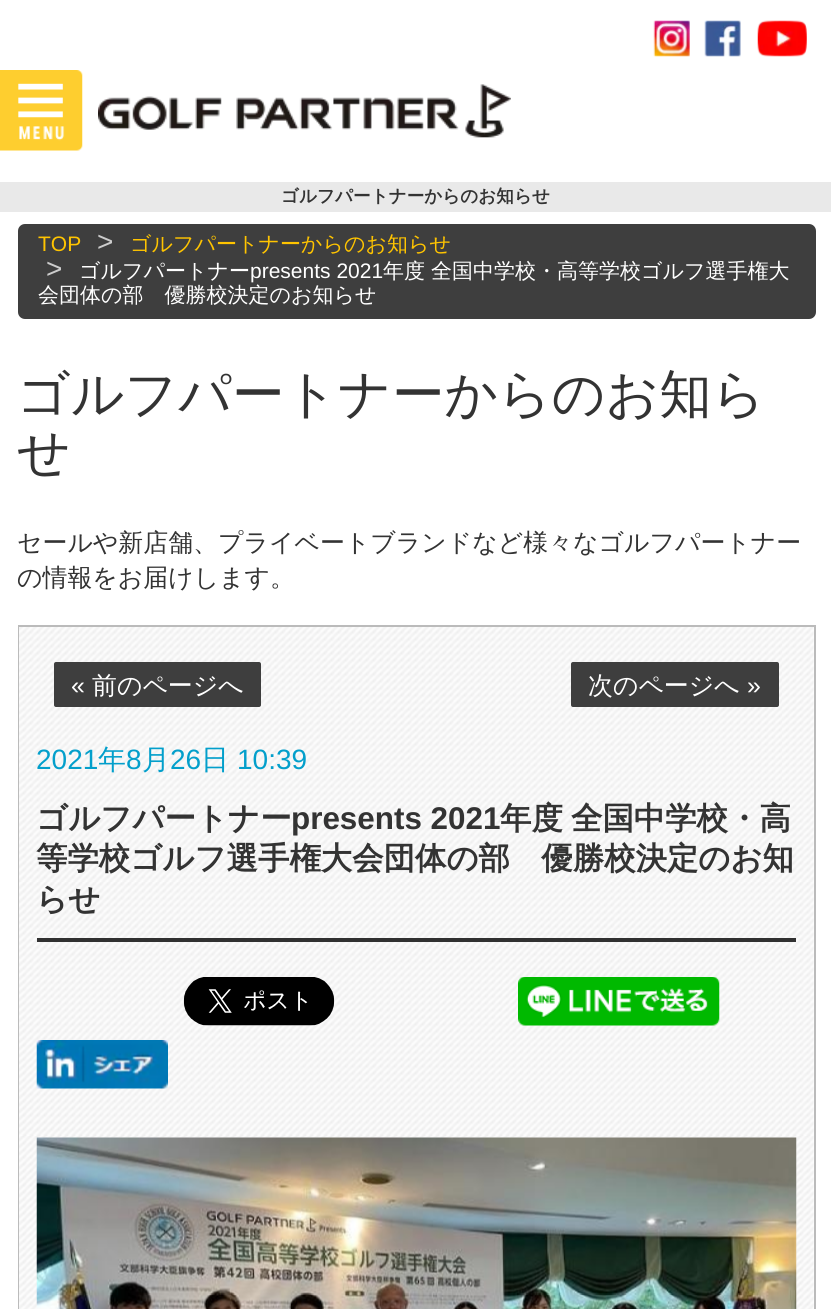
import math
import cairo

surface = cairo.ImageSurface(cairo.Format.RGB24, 831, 1309)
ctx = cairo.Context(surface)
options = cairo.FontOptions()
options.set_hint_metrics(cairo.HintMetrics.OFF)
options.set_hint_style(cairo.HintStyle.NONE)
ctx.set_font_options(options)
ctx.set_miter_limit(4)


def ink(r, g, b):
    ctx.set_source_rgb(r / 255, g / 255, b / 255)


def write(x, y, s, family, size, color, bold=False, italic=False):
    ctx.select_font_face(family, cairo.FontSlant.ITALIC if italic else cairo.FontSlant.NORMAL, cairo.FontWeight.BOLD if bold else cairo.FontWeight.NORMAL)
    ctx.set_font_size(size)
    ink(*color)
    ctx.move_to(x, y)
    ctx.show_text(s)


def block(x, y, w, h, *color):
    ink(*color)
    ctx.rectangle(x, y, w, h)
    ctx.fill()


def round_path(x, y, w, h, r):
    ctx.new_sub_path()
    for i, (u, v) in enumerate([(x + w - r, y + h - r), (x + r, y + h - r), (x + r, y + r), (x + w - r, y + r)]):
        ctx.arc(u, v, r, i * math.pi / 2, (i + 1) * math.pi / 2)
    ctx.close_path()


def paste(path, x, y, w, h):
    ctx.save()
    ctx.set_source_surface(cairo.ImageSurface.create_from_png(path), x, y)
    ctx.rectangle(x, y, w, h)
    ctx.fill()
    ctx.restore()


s1 = dict(family="WenQuanYi Zen Hei", size=17.6, color=(51, 51, 51), bold=True)
s2 = dict(family="Liberation Sans", size=21, color=(255, 196, 0))
s3 = dict(family="Liberation Sans", size=28, color=(204, 204, 204))
s4 = dict(family="WenQuanYi Zen Hei Medium", size=21, color=(255, 196, 0))
s5 = dict(family="WenQuanYi Zen Hei Medium", size=21, color=(255, 255, 255))
s6 = dict(family="Liberation Sans", size=21, color=(255, 255, 255))
s7 = dict(family="WenQuanYi Zen Hei Medium", size=52.5, color=(51, 51, 51))
s8 = dict(family="WenQuanYi Zen Hei Medium", size=24.9, color=(51, 51, 51))
s9 = dict(family="Liberation Sans", size=24.9, color=(255, 255, 255))
s10 = dict(family="WenQuanYi Zen Hei Medium", size=24.9, color=(255, 255, 255))
s11 = dict(family="Liberation Sans", size=28, color=(3, 159, 203))
s12 = dict(family="WenQuanYi Zen Hei Medium", size=28, color=(3, 159, 203))
s13 = dict(family="WenQuanYi Zen Hei", size=31.4, color=(51, 51, 51), bold=True)
s14 = dict(family="Liberation Sans", size=31.4, color=(51, 51, 51), bold=True)

ink(255, 255, 255)
ctx.paint()
paste("pic1.png", 653, 20, 37, 37)
paste("pic2.png", 704, 20, 37, 37)
paste("pic3.png", 757, 20, 50, 37)
paste("pic4.png", 0, 70, 83, 81)
paste("pic5.png", 98, 84, 413, 54)
block(0, 182, 831, 30, 233, 233, 233)
write(281, 202, "ゴルフパートナーからのお知らせ", **s1)
ink(62, 62, 62)
round_path(18, 224, 798, 95, 7)
ctx.fill()
write(38, 251, "TOP", **s2)
write(97, 251, ">", **s3)
write(130, 251, "ゴルフパートナーからのお知らせ", **s4)
write(46, 278, ">", **s3)
write(79, 278, "ゴルフパートナー", **s5)
write(250, 278, "presents 2021", **s6)
write(383, 278, "年度", **s5)
write(431, 278, "全国中学校・高等学校ゴルフ選手権大", **s5)
write(38, 302, "会団体の部　優勝校決定のお知らせ", **s5)
write(17, 412, "ゴルフパートナーからのお知ら", **s7)
write(17, 470, "せ", **s7)
write(17, 551, "セールや新店舗、プライベートブランドなど様々なゴルフパートナー", **s8)
write(17, 586, "の情報をお届けします。", **s8)
ctx.rectangle(19, 626, 796, 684)
ink(187, 187, 187)
ctx.stroke()
paste("pic6.png", 19, 627, 795, 682)
ink(62, 62, 62)
round_path(54, 662, 207, 45, 2)
ctx.fill()
write(71, 694, "«", **s9)
write(92, 694, "前のページへ", **s10)
ink(62, 62, 62)
round_path(571, 662, 208, 45, 2)
ctx.fill()
write(588, 694, "次のページへ", **s10)
write(747, 694, "»", **s9)
write(36, 769, "2021", **s11)
write(98, 769, "年", **s12)
write(126, 769, "8", **s11)
write(142, 769, "月", **s12)
write(170, 769, "26", **s11)
write(201, 769, "日", **s12)
write(237, 769, "10:39", **s11)
block(37, 938, 759, 4, 49, 49, 49)
write(36, 829, "ゴルフパートナー", **s13)
write(291, 829, "presents 2021", **s14)
write(500, 829, "年度", **s13)
write(571, 829, "全国中学校・高", **s13)
write(36, 869, "等学校ゴルフ選手権大会団体の部　優勝校決定のお知", **s13)
write(36, 910, "らせ", **s13)
paste("pic7.png", 183, 977, 152, 49)
paste("pic8.png", 518, 977, 202, 49)
paste("pic9.png", 36, 1040, 132, 49)
paste("pic10.png", 36, 1137, 761, 172)
surface.write_to_png("screenshot.png")
